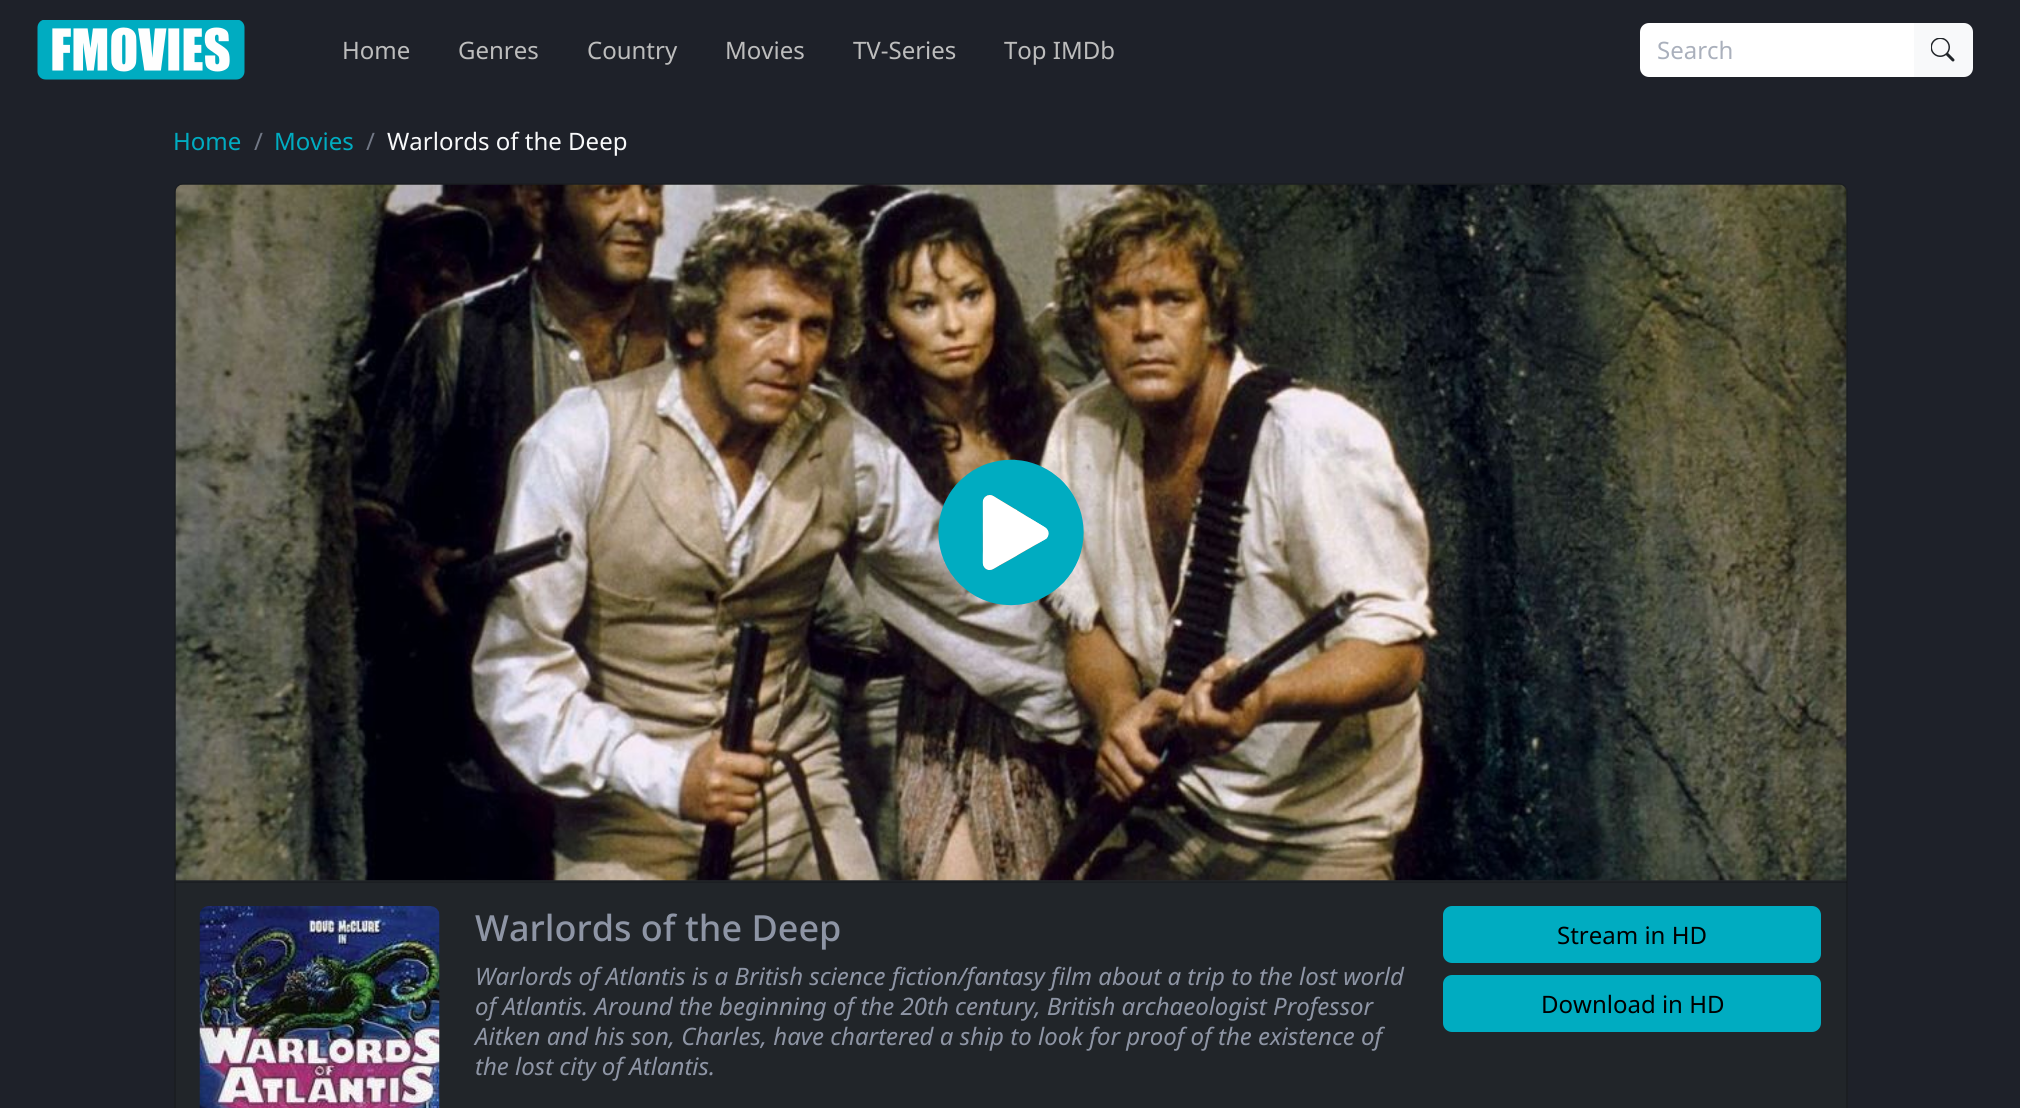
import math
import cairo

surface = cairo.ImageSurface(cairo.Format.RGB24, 2020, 1108)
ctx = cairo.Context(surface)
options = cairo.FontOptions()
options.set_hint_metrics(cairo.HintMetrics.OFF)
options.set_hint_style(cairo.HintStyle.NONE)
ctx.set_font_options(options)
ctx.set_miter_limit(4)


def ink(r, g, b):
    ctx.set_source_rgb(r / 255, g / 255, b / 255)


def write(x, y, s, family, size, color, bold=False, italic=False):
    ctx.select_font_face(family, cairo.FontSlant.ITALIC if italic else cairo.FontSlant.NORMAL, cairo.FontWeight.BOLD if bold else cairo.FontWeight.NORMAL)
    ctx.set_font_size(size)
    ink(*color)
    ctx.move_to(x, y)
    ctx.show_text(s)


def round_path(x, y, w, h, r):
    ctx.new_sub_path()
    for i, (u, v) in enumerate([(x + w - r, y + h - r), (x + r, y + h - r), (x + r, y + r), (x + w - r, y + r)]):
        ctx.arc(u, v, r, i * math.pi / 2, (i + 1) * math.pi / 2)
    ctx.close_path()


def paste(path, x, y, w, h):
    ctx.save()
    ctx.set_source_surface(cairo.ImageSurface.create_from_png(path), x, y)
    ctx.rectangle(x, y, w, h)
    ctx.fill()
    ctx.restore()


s1 = dict(family="Noto Sans", size=24, color=(189, 189, 189))
s2 = dict(family="Noto Sans", size=24, color=(170, 176, 188))
s3 = dict(family="Noto Sans", size=24, color=(0, 172, 193))
s4 = dict(family="Noto Sans", size=24, color=(114, 120, 134))
s5 = dict(family="Noto Sans", size=24, color=(248, 249, 250))
s6 = dict(family="Noto Sans Medium", size=36, color=(142, 149, 165))
s7 = dict(family="Noto Sans", size=24, color=(142, 149, 165), italic=True)
s8 = dict(family="Noto Sans", size=24, color=(0, 0, 0))

ink(30, 33, 41)
ctx.paint()
paste("pic1.png", 37, 20, 208, 60)
write(342, 59, "Home", **s1)
write(458, 59, "Genres", **s1)
write(587, 59, "Country", **s1)
write(725, 59, "Movies", **s1)
write(853, 59, "TV-Series", **s1)
write(1004, 59, "Top IMDb", **s1)
ink(248, 249, 250)
ctx.new_path()
ctx.move_to(1913, 23)
ctx.line_to(1964, 23)
ctx.curve_to(1969, 23, 1973, 27, 1973, 32)
ctx.line_to(1973, 68)
ctx.curve_to(1973, 73, 1969, 77, 1964, 77)
ctx.line_to(1913, 77)
ctx.close_path()
ctx.fill()
ink(255, 255, 255)
ctx.new_path()
ctx.move_to(1649, 23)
ctx.line_to(1914, 23)
ctx.line_to(1914, 77)
ctx.line_to(1649, 77)
ctx.curve_to(1644, 77, 1640, 73, 1640, 68)
ctx.line_to(1640, 32)
ctx.curve_to(1640, 27, 1644, 23, 1649, 23)
ctx.close_path()
ctx.fill()
write(1657, 59, "Search", **s2)
paste("pic2.png", 1931, 38, 24, 24)
write(173, 150, "Home", **s3)
write(254, 150, "/", **s4)
write(274, 150, "Movies", **s3)
write(366, 150, "/", **s4)
write(387, 150, "Warlords of the Deep", **s5)
ink(33, 37, 41)
round_path(175, 184, 1672, 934, 8)
ctx.fill_preserve()
ink(27, 30, 34)
ctx.stroke()
ctx.set_source_rgba(0.557, 0.584, 0.647, 0.03)
ctx.rectangle(176, 187, 1671, 695)
ctx.fill()
ctx.set_source_rgba(0, 0, 0, 0.18)
ctx.rectangle(176, 881, 1671, 2)
ctx.fill()
paste("pic3.png", 175, 184, 1672, 697)
paste("pic4.png", 938, 459, 146, 147)
paste("pic5.png", 199, 906, 241, 202)
write(475, 941, "Warlords of the Deep", **s6)
write(475, 985, "Warlords of Atlantis is a British science fiction/fantasy film about a trip to the lost world", **s7)
write(475, 1015, "of Atlantis. Around the beginning of the 20th century, British archaeologist Professor", **s7)
write(475, 1045, "Aitken and his son, Charles, have chartered a ship to look for proof of the existence of", **s7)
write(475, 1075, "the lost city of Atlantis.", **s7)
ink(0, 172, 193)
round_path(1444, 907, 376, 55, 8)
ctx.fill_preserve()
ctx.stroke()
write(1557, 944, "Stream in HD", **s8)
ink(0, 172, 193)
round_path(1444, 976, 376, 55, 8)
ctx.fill_preserve()
ctx.stroke()
write(1541, 1013, "Download in HD", **s8)
surface.write_to_png("screenshot.png")
